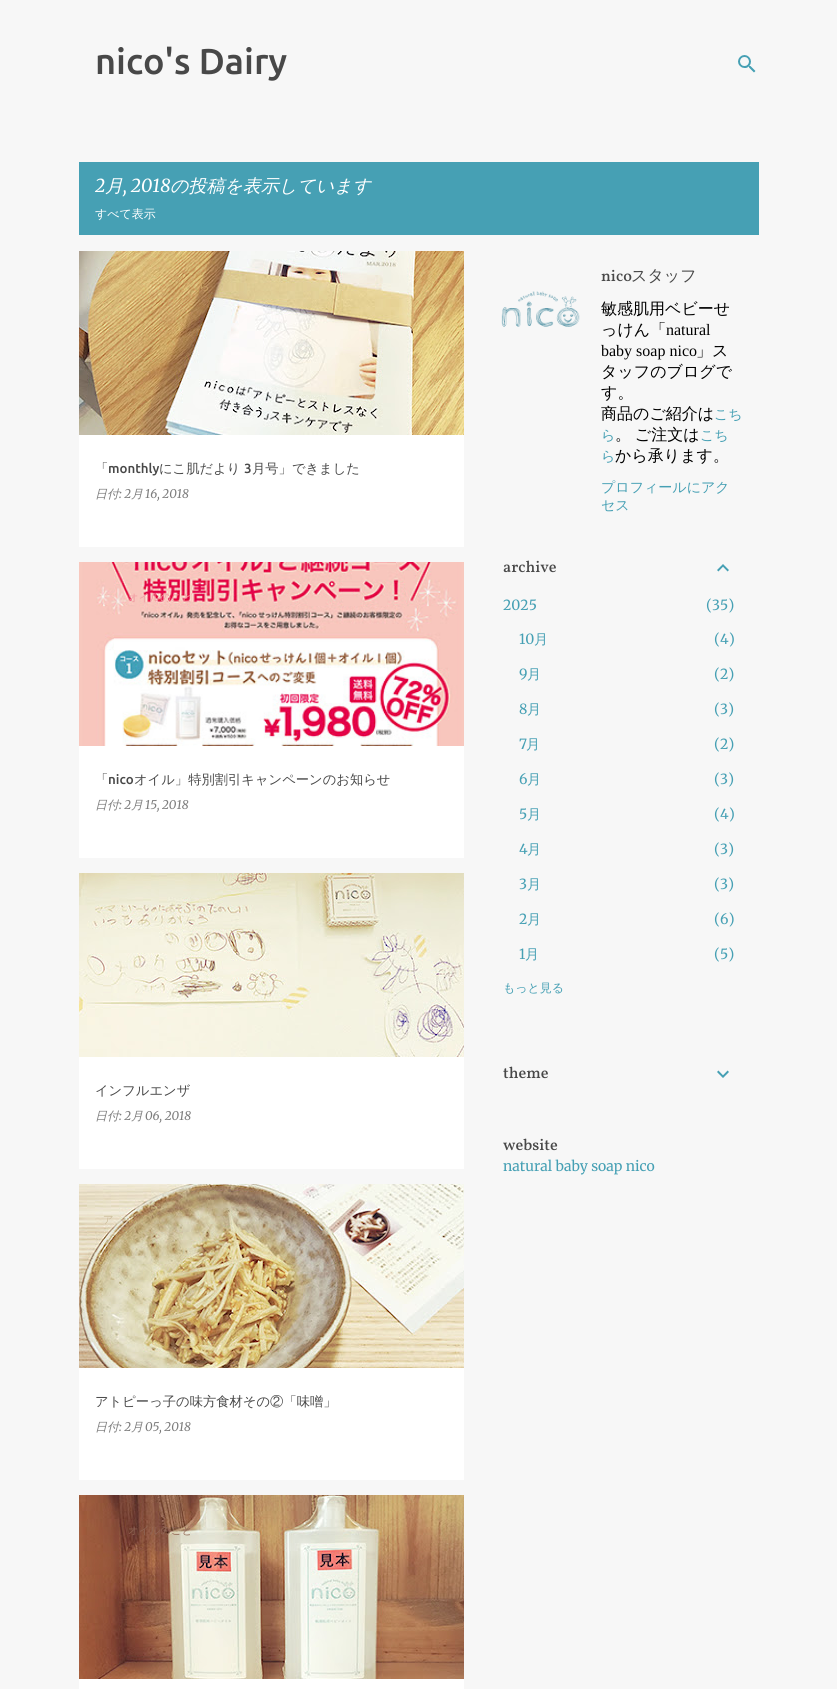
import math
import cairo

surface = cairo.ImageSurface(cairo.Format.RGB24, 837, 1689)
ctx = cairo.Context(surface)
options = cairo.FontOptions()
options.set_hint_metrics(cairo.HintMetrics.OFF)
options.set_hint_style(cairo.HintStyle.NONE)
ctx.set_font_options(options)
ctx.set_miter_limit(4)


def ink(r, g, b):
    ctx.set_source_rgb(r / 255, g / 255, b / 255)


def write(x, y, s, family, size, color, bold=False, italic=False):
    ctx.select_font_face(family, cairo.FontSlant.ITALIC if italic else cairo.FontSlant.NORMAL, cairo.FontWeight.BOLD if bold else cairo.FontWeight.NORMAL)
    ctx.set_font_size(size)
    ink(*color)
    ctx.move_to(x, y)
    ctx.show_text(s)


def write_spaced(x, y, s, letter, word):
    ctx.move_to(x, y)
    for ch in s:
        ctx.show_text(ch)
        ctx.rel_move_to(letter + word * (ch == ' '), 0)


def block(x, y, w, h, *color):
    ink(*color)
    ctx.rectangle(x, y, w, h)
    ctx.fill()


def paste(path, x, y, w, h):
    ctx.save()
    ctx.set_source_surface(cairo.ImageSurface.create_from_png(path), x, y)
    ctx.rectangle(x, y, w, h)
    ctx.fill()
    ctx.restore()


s1 = dict(family="Ubuntu Medium", size=36, color=(72, 72, 72))
s2 = dict(family="Merriweather", size=18, color=(255, 255, 255), italic=True)
s3 = dict(family="WenQuanYi Zen Hei Medium", size=18, color=(255, 255, 255), italic=True)
s4 = dict(family="WenQuanYi Zen Hei Medium", size=12, color=(255, 255, 255))
s5 = dict(family="WenQuanYi Zen Hei Medium", size=10.5, color=(205, 169, 108))
s6 = dict(family="WenQuanYi Zen Hei Medium", size=12, color=(125, 125, 125), italic=True)
s7 = dict(family="Merriweather", size=12, color=(125, 125, 125), italic=True)
s8 = dict(family="WenQuanYi Zen Hei Medium", size=13.3, color=(72, 72, 72))
s9 = dict(family="Ubuntu Medium", size=13.3, color=(72, 72, 72))
s10 = dict(family="WenQuanYi Zen Hei Medium", size=10.5, color=(242, 154, 161))
s11 = dict(family="WenQuanYi Zen Hei Medium", size=10.5, color=(203, 187, 152))
s12 = dict(family="WenQuanYi Zen Hei Medium", size=10.5, color=(145, 103, 85))
s13 = dict(family="Vollkorn Medium", size=16, color=(72, 72, 72))
s14 = dict(family="WenQuanYi Zen Hei Medium", size=16, color=(72, 72, 72))
s15 = dict(family="WenQuanYi Zen Hei Medium", size=16, color=(0, 0, 0))
s16 = dict(family="Liberation Serif", size=16, color=(0, 0, 0))
s17 = dict(family="WenQuanYi Zen Hei Medium", size=14, color=(70, 160, 180))
s18 = dict(family="Merriweather Light", size=14, color=(70, 160, 180))
s19 = dict(family="WenQuanYi Zen Hei Medium", size=12, color=(70, 160, 180))

ink(247, 247, 247)
ctx.paint()
write(95, 74, "nico's Dairy", **s1)
paste("pic1.png", 738, 55, 18, 18)
block(79, 162, 680, 73, 70, 160, 180)
write(95, 192, "2", **s2)
write(105, 192, "月", **s3)
write(123, 192, ", 2018", **s2)
write(170, 192, "の投稿を表示しています", **s3)
write(95, 218, "すべて表示", **s4)
block(79, 435, 385, 112, 255, 255, 255)
paste("pic2.png", 79, 251, 385, 184)
write(199, 290, "ら", **s5)
write(95, 498, "日付", **s6)
write(119, 498, ": 2", **s7)
write(131, 498, "月", **s6)
write(145, 498, "16, 2018", **s7)
write(95, 473, "「", **s8)
write(108, 473, "monthly", **s9)
write(159, 473, "にこ肌だより", **s8)
write(244, 473, "3", **s9)
write(252, 473, "月号」できました", **s8)
block(79, 746, 385, 112, 255, 255, 255)
paste("pic3.png", 79, 562, 385, 184)
write(128, 601, "オイルのこと", **s10)
write(95, 809, "日付", **s6)
write(119, 809, ": 2", **s7)
write(131, 809, "月", **s6)
write(145, 809, "15, 2018", **s7)
write(95, 784, "「", **s8)
write(108, 784, "nico", **s9)
write(134, 784, "オイル」特別割引キャンペーンのお知らせ", **s8)
block(79, 1057, 385, 112, 255, 255, 255)
paste("pic4.png", 79, 873, 385, 184)
write(95, 1095, "インフルエンザ", **s8)
write(95, 1120, "日付", **s6)
write(119, 1120, ": 2", **s7)
write(131, 1120, "月", **s6)
write(145, 1120, "06, 2018", **s7)
block(79, 1368, 385, 112, 255, 255, 255)
paste("pic5.png", 79, 1184, 385, 184)
write(103, 1223, "ア", **s11)
write(95, 1431, "日付", **s6)
write(119, 1431, ": 2", **s7)
write(131, 1431, "月", **s6)
write(145, 1431, "05, 2018", **s7)
write(95, 1406, "アトピーっ子の味方食材その②「味噌」", **s8)
block(79, 1679, 385, 10, 255, 255, 255)
paste("pic6.png", 79, 1495, 385, 184)
write(128, 1534, "オイルのこと", **s12)
paste("pic7.png", 501, 291, 79, 36)
write(601, 281, "nico", **s13)
write(631, 281, "スタッフ", **s14)
write(601, 314, "敏感肌用ベビーせ", **s15)
write(601, 335, "っけん「", **s15)
write(666, 335, "natural", **s16)
write(601, 356, "baby soap nico", **s16)
write(696, 356, "」ス", **s15)
write(601, 377, "タッフのブログで", **s15)
write(601, 398, "す。", **s15)
write(601, 419, "商品のご紹介は", **s15)
write(714, 419, "こち", **s17)
write(601, 440, "ら", **s17)
ctx.set_font_size(16)
ink(0, 0, 0)
write_spaced(615, 440, "。 ご注文は", 0, -1)
write(700, 440, "こち", **s17)
write(601, 461, "ら", **s17)
write(615, 461, "から承ります。", **s15)
write(601, 492, "プロフィールにアク", **s17)
write(601, 510, "セス", **s17)
write(503, 572, "archive", **s13)
paste("pic8.png", 717, 564, 12, 8)
write(503, 610, "2025", **s18)
write(706, 610, "(35)", **s18)
write(519, 644, "10", **s18)
write(534, 644, "月", **s17)
write(714, 644, "(4)", **s18)
write(519, 679, "9", **s18)
write(527, 679, "月", **s17)
write(714, 679, "(2)", **s18)
write(519, 714, "8", **s18)
write(527, 714, "月", **s17)
write(714, 714, "(3)", **s18)
write(519, 749, "7", **s18)
write(526, 749, "月", **s17)
write(714, 749, "(2)", **s18)
write(519, 784, "6", **s18)
write(527, 784, "月", **s17)
write(714, 784, "(3)", **s18)
write(519, 819, "5", **s18)
write(527, 819, "月", **s17)
write(714, 819, "(4)", **s18)
write(519, 854, "4", **s18)
write(527, 854, "月", **s17)
write(714, 854, "(3)", **s18)
write(519, 889, "3", **s18)
write(527, 889, "月", **s17)
write(714, 889, "(3)", **s18)
write(519, 924, "2", **s18)
write(527, 924, "月", **s17)
write(714, 924, "(6)", **s18)
write(519, 959, "1", **s18)
write(525, 959, "月", **s17)
write(714, 959, "(5)", **s18)
write(503, 992, "もっと見る", **s19)
write(503, 1078, "theme", **s13)
paste("pic9.png", 717, 1070, 12, 8)
write(503, 1150, "website", **s13)
write(503, 1171, "natural baby soap nico", **s18)
surface.write_to_png("screenshot.png")
